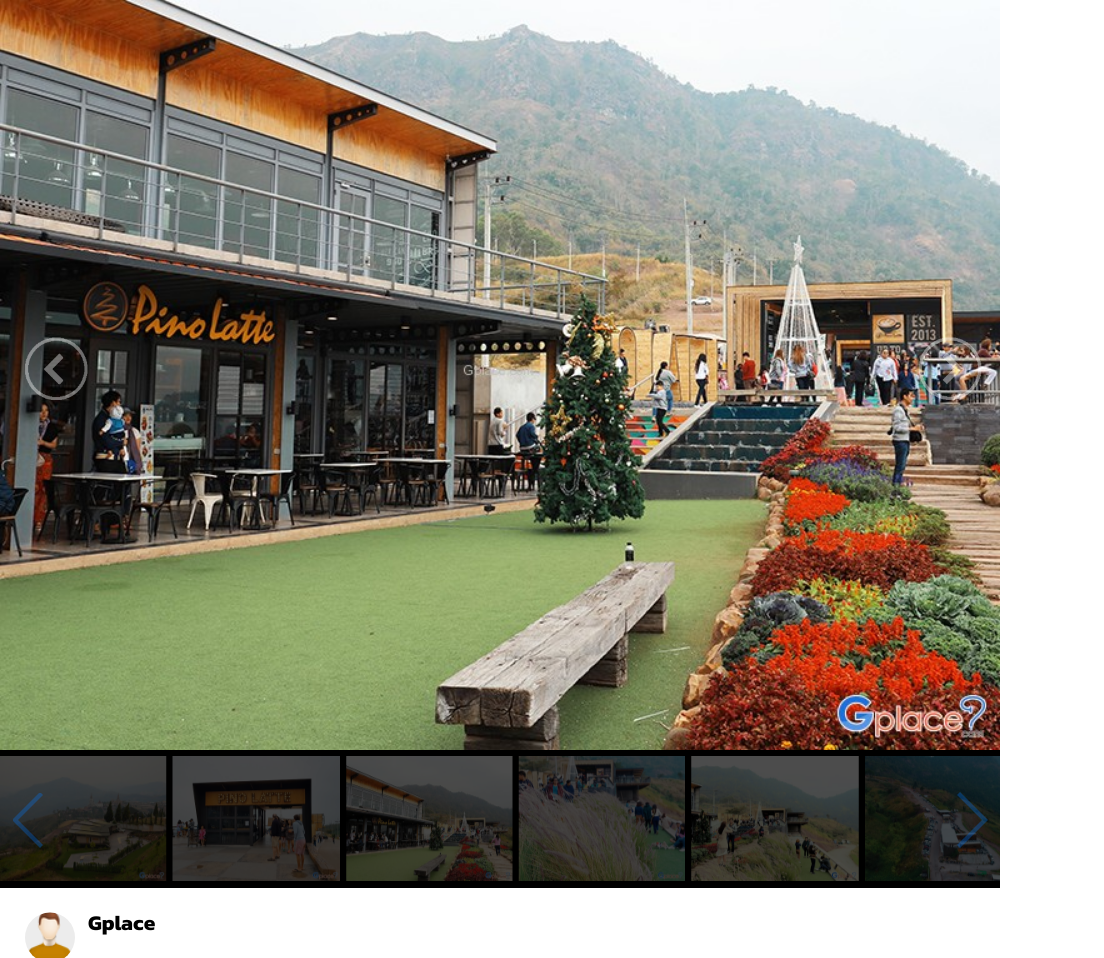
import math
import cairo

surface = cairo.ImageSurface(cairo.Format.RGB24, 1104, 958)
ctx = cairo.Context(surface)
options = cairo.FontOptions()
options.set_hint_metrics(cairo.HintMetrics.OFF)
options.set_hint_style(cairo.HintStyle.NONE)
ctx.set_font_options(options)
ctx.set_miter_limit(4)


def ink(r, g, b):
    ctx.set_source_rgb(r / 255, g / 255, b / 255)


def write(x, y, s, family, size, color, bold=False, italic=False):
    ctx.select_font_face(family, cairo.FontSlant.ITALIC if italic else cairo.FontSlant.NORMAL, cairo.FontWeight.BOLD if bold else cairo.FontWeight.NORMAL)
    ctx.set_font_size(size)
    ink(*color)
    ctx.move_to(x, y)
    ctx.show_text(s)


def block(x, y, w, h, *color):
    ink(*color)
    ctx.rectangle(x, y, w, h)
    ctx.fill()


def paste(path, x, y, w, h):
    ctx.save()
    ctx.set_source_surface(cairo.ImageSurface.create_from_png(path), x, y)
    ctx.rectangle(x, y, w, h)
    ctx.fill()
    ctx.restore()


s1 = dict(family="Kanit", size=21, color=(0, 0, 0), bold=True)

ink(255, 255, 255)
ctx.paint()
block(0, 750, 1000, 138, 0, 0, 0)
paste("pic1.png", 0, 0, 1000, 750)
paste("pic2.png", 25, 337, 63, 63)
paste("pic3.png", 918, 337, 64, 63)
paste("pic4.png", 0, 756, 167, 125)
paste("pic5.png", 172, 756, 168, 125)
paste("pic6.png", 346, 756, 167, 125)
paste("pic7.png", 518, 756, 167, 125)
paste("pic8.png", 691, 756, 168, 125)
paste("pic9.png", 865, 756, 135, 125)
ctx.save()
ctx.rectangle(13, 793, 33, 55)
ctx.clip()
ctx.set_source_rgba(0, 0.478, 1, 0.3)
ctx.new_path()
ctx.move_to(12, 820)
ctx.line_to(40, 792)
ctx.line_to(43, 795)
ctx.line_to(18, 820)
ctx.line_to(43, 845)
ctx.line_to(40, 848)
ctx.close_path()
ctx.fill()
ctx.restore()
ctx.set_source_rgba(0, 0.478, 1, 0.3)
ctx.new_path()
ctx.move_to(988, 820)
ctx.line_to(960, 848)
ctx.line_to(957, 845)
ctx.line_to(982, 820)
ctx.line_to(957, 795)
ctx.line_to(960, 792)
ctx.close_path()
ctx.fill()
paste("pic10.png", 25, 912, 50, 46)
write(88, 930, "Gplace", **s1)
surface.write_to_png("screenshot.png")
